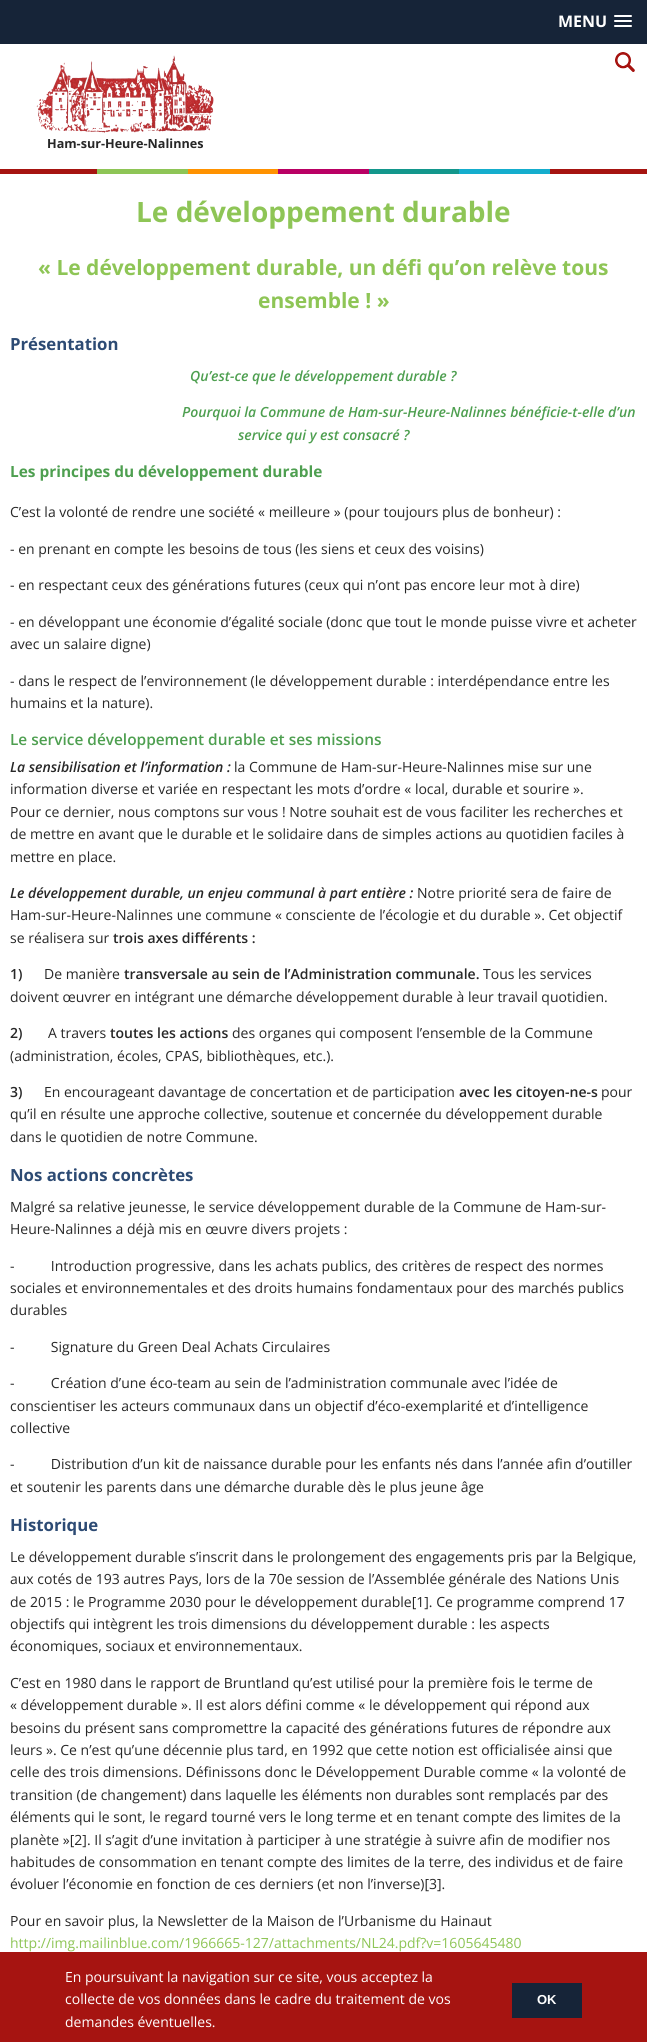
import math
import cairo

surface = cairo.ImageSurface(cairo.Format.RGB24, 647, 2042)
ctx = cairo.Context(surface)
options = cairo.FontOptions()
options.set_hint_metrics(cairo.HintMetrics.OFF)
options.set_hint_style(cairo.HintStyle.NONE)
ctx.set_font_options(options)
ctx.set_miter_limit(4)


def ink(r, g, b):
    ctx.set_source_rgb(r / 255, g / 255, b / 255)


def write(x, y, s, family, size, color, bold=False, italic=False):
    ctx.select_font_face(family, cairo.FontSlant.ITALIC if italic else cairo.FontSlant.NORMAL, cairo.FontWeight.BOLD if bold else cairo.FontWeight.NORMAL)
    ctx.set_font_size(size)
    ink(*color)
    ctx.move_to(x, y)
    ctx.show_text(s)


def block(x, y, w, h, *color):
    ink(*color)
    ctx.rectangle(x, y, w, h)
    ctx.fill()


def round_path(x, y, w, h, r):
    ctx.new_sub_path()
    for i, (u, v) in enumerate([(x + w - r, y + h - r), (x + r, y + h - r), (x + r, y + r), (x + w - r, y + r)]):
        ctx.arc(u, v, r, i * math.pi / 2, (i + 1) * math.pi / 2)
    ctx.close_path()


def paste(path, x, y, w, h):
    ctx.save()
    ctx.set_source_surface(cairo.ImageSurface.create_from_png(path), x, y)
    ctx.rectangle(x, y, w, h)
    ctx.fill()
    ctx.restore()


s1 = dict(family="Open Sans", size=16, color=(255, 255, 255), bold=True)
s2 = dict(family="Open Sans", size=12.6, color=(39, 39, 39), bold=True)
s3 = dict(family="Open Sans", size=28, color=(142, 197, 86), bold=True)
s4 = dict(family="Open Sans", size=21, color=(142, 197, 86), bold=True)
s5 = dict(family="Open Sans", size=16.75, color=(45, 75, 116), bold=True)
s6 = dict(family="Open Sans SemiBold", size=14, color=(78, 159, 80), italic=True)
s7 = dict(family="Open Sans", size=15.4, color=(78, 159, 80), bold=True)
s8 = dict(family="Open Sans", size=14, color=(39, 39, 39))
s9 = dict(family="Open Sans SemiBold", size=15.4, color=(78, 159, 80))
s10 = dict(family="Open Sans SemiBold", size=14, color=(39, 39, 39), italic=True)
s11 = dict(family="Open Sans SemiBold", size=14, color=(39, 39, 39))
s12 = dict(family="Open Sans", size=14, color=(142, 197, 86))
s13 = dict(family="Open Sans", size=14, color=(255, 255, 255))
s14 = dict(family="Liberation Sans", size=13, color=(255, 255, 255), bold=True)

ink(255, 255, 255)
ctx.paint()
block(0, 0, 647, 44, 22, 36, 56)
write(558, 27, "MENU", **s1)
round_path(614, 15, 18, 2, 1)
ctx.fill()
round_path(614, 20, 18, 2, 1)
ctx.fill()
round_path(614, 25, 18, 2, 1)
ctx.fill()
paste("pic1.png", 615, 52, 20, 20)
paste("pic2.png", 36, 55, 178, 78)
write(47, 148, "Ham-sur-Heure-Nalinnes", **s2)
block(0, 169, 647, 5, 166, 20, 17)
block(97, 169, 91, 5, 142, 197, 86)
block(188, 169, 90, 5, 255, 146, 0)
block(278, 169, 91, 5, 185, 0, 100)
block(369, 169, 90, 5, 19, 151, 140)
block(459, 169, 91, 5, 21, 173, 205)
write(136, 222, "Le développement durable", **s3)
write(38, 275, "« Le développement durable, un défi qu’on relève tous", **s4)
write(258, 308, "ensemble ! »", **s4)
write(10, 350, "Présentation", **s5)
write(190, 381, "Qu’est-ce que le développement durable ?", **s6)
write(182, 417, "Pourquoi la Commune de Ham-sur-Heure-Nalinnes bénéficie-t-elle d’un", **s6)
write(238, 440, "service qui y est consacré ?", **s6)
write(10, 477, "Les principes du développement durable", **s7)
write(10, 517, "C’est la volonté de rendre une société « meilleure » (pour toujours plus de bonheur) :", **s8)
write(10, 554, "- en prenant en compte les besoins de tous (les siens et ceux des voisins)", **s8)
write(10, 590, "- en respectant ceux des générations futures (ceux qui n’ont pas encore leur mot à dire)", **s8)
write(10, 627, "- en développant une économie d’égalité sociale (donc que tout le monde puisse vivre et acheter", **s8)
write(10, 649, "avec un salaire digne)", **s8)
write(10, 686, "- dans le respect de l’environnement (le développement durable : interdépendance entre les", **s8)
write(10, 708, "humains et la nature).", **s8)
write(10, 745, "Le service développement durable et ses missions", **s9)
write(10, 772, "La sensibilisation et l’information :", **s10)
write(234, 772, "la Commune de Ham-sur-Heure-Nalinnes mise sur une", **s8)
write(10, 794, "information diverse et variée en respectant les mots d’ordre « local, durable et sourire ».", **s8)
write(10, 817, "Pour ce dernier, nous comptons sur vous ! Notre souhait est de vous faciliter les recherches et", **s8)
write(10, 839, "de mettre en avant que le durable et le solidaire dans de simples actions au quotidien faciles à", **s8)
write(10, 862, "mettre en place.", **s8)
write(10, 898, "Le développement durable, un enjeu communal à part entière :", **s10)
write(417, 898, "Notre priorité sera de faire de", **s8)
write(10, 920, "Ham-sur-Heure-Nalinnes une commune « consciente de l’écologie et du durable ». Cet objectif", **s8)
write(10, 943, "se réalisera sur", **s8)
write(113, 943, "trois axes différents :", **s11)
write(10, 979, "1)", **s11)
write(44, 979, "De manière", **s8)
write(124, 979, "transversale au sein de l’Administration communale.", **s11)
write(483, 979, "Tous les services", **s8)
write(10, 1002, "doivent œuvrer en intégrant une démarche développement durable à leur travail quotidien.", **s8)
write(10, 1038, "2)", **s11)
write(48, 1038, "A travers", **s8)
write(110, 1038, "toutes les actions", **s11)
write(232, 1038, "des organes qui composent l’ensemble de la Commune", **s8)
write(10, 1061, "(administration, écoles, CPAS, bibliothèques, etc.).", **s8)
write(10, 1097, "3)", **s11)
write(44, 1097, "En encourageant davantage de concertation et de participation", **s8)
write(459, 1097, "avec les citoyen-ne-s", **s11)
write(601, 1097, "pour", **s8)
write(10, 1119, "qu’il en résulte une approche collective, soutenue et concernée du développement durable", **s8)
write(10, 1142, "dans le quotidien de notre Commune.", **s8)
write(10, 1181, "Nos actions concrètes", **s5)
write(10, 1212, "Malgré sa relative jeunesse, le service développement durable de la Commune de Ham-sur-", **s8)
write(10, 1234, "Heure-Nalinnes a déjà mis en œuvre divers projets :", **s8)
write(10, 1271, "-          Introduction progressive, dans les achats publics, des critères de respect des normes", **s8)
write(10, 1293, "sociales et environnementales et des droits humains fondamentaux pour des marchés publics", **s8)
write(10, 1315, "durables", **s8)
write(10, 1352, "-          Signature du Green Deal Achats Circulaires", **s8)
write(10, 1388, "-          Création d’une éco-team au sein de l’administration communale avec l’idée de", **s8)
write(10, 1411, "conscientiser les acteurs communaux dans un objectif d’éco-exemplarité et d’intelligence", **s8)
write(10, 1433, "collective", **s8)
write(10, 1469, "-          Distribution d’un kit de naissance durable pour les enfants nés dans l’année afin d’outiller", **s8)
write(10, 1492, "et soutenir les parents dans une démarche durable dès le plus jeune âge", **s8)
write(10, 1531, "Historique", **s5)
write(10, 1562, "Le développement durable s’inscrit dans le prolongement des engagements pris par la Belgique,", **s8)
write(10, 1584, "aux cotés de 193 autres Pays, lors de la 70e session de l’Assemblée générale des Nations Unis", **s8)
write(10, 1607, "de 2015 : le Programme 2030 pour le développement durable[1]. Ce programme comprend 17", **s8)
write(10, 1629, "objectifs qui intègrent les trois dimensions du développement durable : les aspects", **s8)
write(10, 1651, "économiques, sociaux et environnementaux.", **s8)
write(10, 1688, "C’est en 1980 dans le rapport de Bruntland qu’est utilisé pour la première fois le terme de", **s8)
write(10, 1710, "« développement durable ». Il est alors défini comme « le développement qui répond aux", **s8)
write(10, 1733, "besoins du présent sans compromettre la capacité des générations futures de répondre aux", **s8)
write(10, 1755, "leurs ». Ce n’est qu’une décennie plus tard, en 1992 que cette notion est officialisée ainsi que", **s8)
write(10, 1777, "celle des trois dimensions. Définissons donc le Développement Durable comme « la volonté de", **s8)
write(10, 1800, "transition (de changement) dans laquelle les éléments non durables sont remplacés par des", **s8)
write(10, 1822, "éléments qui le sont, le regard tourné vers le long terme et en tenant compte des limites de la", **s8)
write(10, 1845, "planète »[2]. Il s’agit d’une invitation à participer à une stratégie à suivre afin de modifier nos", **s8)
write(10, 1867, "habitudes de consommation en tenant compte des limites de la terre, des individus et de faire", **s8)
write(10, 1889, "évoluer l’économie en fonction de ces derniers (et non l’inverse)[3].", **s8)
write(10, 1926, "Pour en savoir plus, la Newsletter de la Maison de l’Urbanisme du Hainaut", **s8)
write(10, 1948, "http://img.mailinblue.com/1966665-127/attachments/NL24.pdf?v=1605645480", **s12)
block(0, 1952, 647, 90, 166, 20, 17)
write(65, 1982, "En poursuivant la navigation sur ce site, vous acceptez la", **s13)
write(65, 2004, "collecte de vos données dans le cadre du traitement de vos", **s13)
write(65, 2027, "demandes éventuelles.", **s13)
block(512, 1983, 70, 35, 22, 36, 56)
write(537, 2004, "OK", **s14)
surface.write_to_png("screenshot.png")
